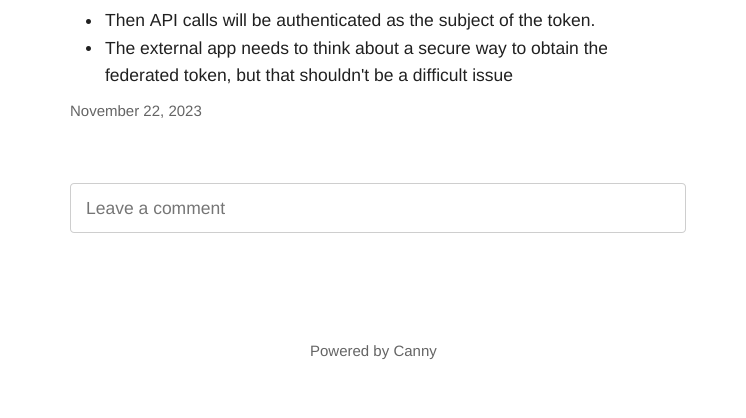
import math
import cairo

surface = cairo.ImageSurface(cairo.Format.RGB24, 746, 418)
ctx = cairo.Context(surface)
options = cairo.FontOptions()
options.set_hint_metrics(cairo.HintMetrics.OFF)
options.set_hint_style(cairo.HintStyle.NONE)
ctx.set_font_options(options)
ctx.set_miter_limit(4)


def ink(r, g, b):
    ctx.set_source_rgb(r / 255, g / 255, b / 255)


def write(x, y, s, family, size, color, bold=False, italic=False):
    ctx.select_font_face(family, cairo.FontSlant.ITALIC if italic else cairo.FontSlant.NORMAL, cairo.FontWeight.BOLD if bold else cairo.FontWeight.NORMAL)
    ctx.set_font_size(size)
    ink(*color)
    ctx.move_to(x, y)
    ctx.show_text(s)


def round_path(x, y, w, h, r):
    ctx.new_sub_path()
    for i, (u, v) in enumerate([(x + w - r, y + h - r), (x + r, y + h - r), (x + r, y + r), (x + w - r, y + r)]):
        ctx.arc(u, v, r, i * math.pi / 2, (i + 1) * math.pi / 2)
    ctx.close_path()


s1 = dict(family="Liberation Sans", size=17.5, color=(32, 32, 32))
s2 = dict(family="Liberation Sans", size=15, color=(100, 100, 100))
s3 = dict(family="Liberation Sans", size=17.5, color=(117, 117, 117))

ink(255, 255, 255)
ctx.paint()
ink(32, 32, 32)
ctx.arc(88.5, 21.5, 2.5, 0, 2 * math.pi)
ctx.fill()
write(105, 26, "Then API calls will be authenticated as the subject of the token.", **s1)
ctx.new_path()
ctx.arc(88.5, 48.5, 2.5, 0, 2 * math.pi)
ctx.fill()
write(105, 54, "The external app needs to think about a secure way to obtain the", **s1)
write(105, 81, "federated token, but that shouldn't be a difficult issue", **s1)
write(70, 116, "November 22, 2023", **s2)
round_path(70.5, 183.5, 615, 49, 3.5)
ink(206, 206, 206)
ctx.set_line_width(1)
ctx.stroke()
write(86, 214, "Leave a comment", **s3)
write(310, 356, "Powered by Canny", **s2)
surface.write_to_png("screenshot.png")
